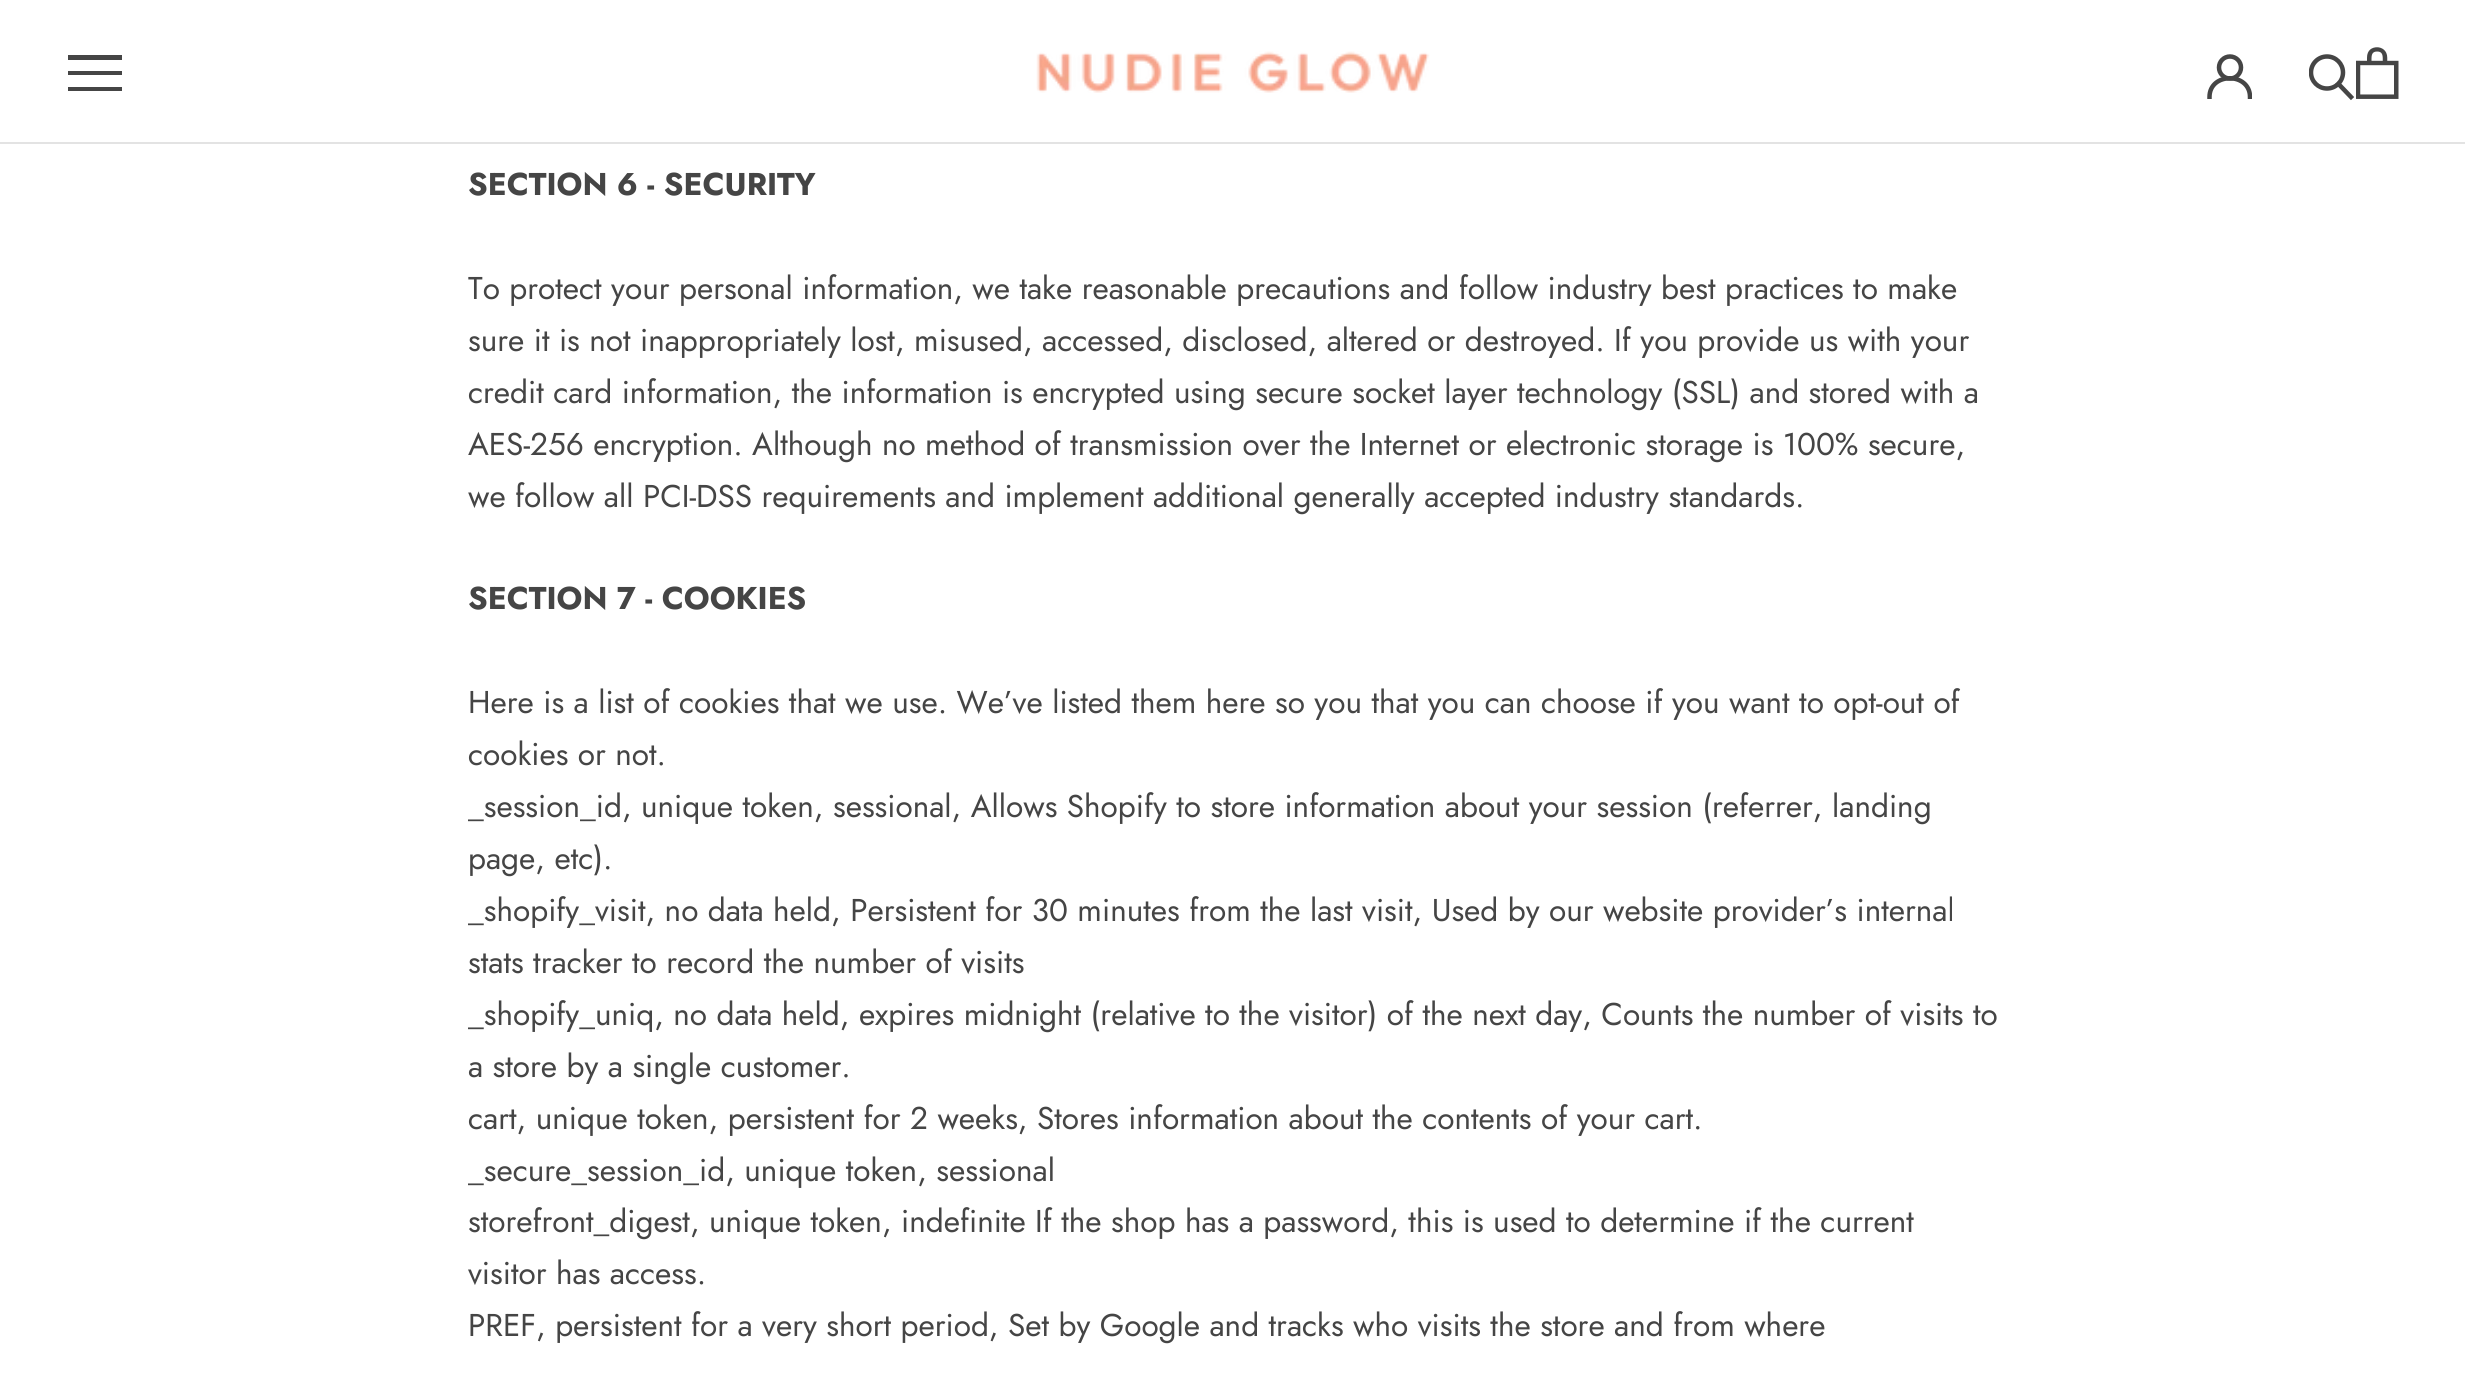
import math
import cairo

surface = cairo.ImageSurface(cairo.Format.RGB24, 2465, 1392)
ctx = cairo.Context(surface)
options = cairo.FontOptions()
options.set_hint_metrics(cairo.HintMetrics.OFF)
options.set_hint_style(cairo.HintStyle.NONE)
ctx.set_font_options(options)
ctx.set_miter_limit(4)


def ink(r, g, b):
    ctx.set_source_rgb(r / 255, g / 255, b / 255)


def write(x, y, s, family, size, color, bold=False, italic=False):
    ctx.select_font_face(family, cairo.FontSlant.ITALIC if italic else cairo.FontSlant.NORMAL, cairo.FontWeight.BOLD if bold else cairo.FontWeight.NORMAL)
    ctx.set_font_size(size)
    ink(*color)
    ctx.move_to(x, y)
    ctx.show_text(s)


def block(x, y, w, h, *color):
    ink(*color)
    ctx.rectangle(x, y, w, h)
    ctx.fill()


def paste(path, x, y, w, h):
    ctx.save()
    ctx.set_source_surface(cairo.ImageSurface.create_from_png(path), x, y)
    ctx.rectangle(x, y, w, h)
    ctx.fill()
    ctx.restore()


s1 = dict(family="Jost", size=31.5, color=(69, 69, 69), bold=True)
s2 = dict(family="Jost", size=31.5, color=(69, 69, 69))

ink(255, 255, 255)
ctx.paint()
block(0, 142, 2465, 2, 227, 227, 227)
ink(69, 69, 69)
ctx.new_path()
ctx.move_to(68, 91)
ctx.line_to(68, 87)
ctx.line_to(122, 87)
ctx.line_to(122, 91)
ctx.close_path()
ctx.move_to(68, 71)
ctx.line_to(122, 71)
ctx.line_to(122, 75)
ctx.line_to(68, 75)
ctx.close_path()
ctx.move_to(68, 55)
ctx.line_to(122, 55)
ctx.line_to(122, 60)
ctx.line_to(68, 60)
ctx.close_path()
ctx.fill()
paste("pic1.png", 1036, 51, 394, 42)
ctx.save()
ctx.rectangle(2207, 54, 45, 45)
ctx.clip()
ctx.new_path()
ctx.move_to(2209.5, 97)
ctx.curve_to(2209.5, 72, 2250, 72, 2250, 97)
ctx.set_line_width(4.5)
ctx.set_line_cap(cairo.LineCap.SQUARE)
ctx.stroke()
ctx.restore()
ctx.arc(2230, 67.5, 11, 0, 2 * math.pi)
ctx.set_line_width(4.5)
ctx.stroke()
ctx.new_path()
ctx.move_to(2351, 97)
ctx.line_to(2338.5, 84)
ctx.set_line_cap(cairo.LineCap.SQUARE)
ctx.stroke()
ctx.save()
ctx.rectangle(2309, 54, 47, 47)
ctx.clip()
ctx.arc(2327, 72.5, 16, 0, 2 * math.pi)
ctx.set_line_cap(cairo.LineCap.BUTT)
ctx.stroke()
ctx.restore()
paste("pic2.png", 2356, 47, 43, 52)
write(468, 195, "SECTION 6 - SECURITY", **s1)
write(468, 299, "To protect your personal information, we take reasonable precautions and follow industry best practices to make", **s2)
write(468, 351, "sure it is not inappropriately lost, misused, accessed, disclosed, altered or destroyed. If you provide us with your", **s2)
write(468, 403, "credit card information, the information is encrypted using secure socket layer technology (SSL) and stored with a", **s2)
write(468, 455, "AES-256 encryption. Although no method of transmission over the Internet or electronic storage is 100% secure,", **s2)
write(468, 507, "we follow all PCI-DSS requirements and implement additional generally accepted industry standards.", **s2)
write(468, 609, "SECTION 7 - COOKIES", **s1)
write(468, 713, "Here is a list of cookies that we use. We’ve listed them here so you that you can choose if you want to opt-out of", **s2)
write(468, 765, "cookies or not.", **s2)
write(468, 817, "_session_id, unique token, sessional, Allows Shopify to store information about your session (referrer, landing", **s2)
write(468, 869, "page, etc).", **s2)
write(468, 921, "_shopify_visit, no data held, Persistent for 30 minutes from the last visit, Used by our website provider’s internal", **s2)
write(468, 973, "stats tracker to record the number of visits", **s2)
write(468, 1025, "_shopify_uniq, no data held, expires midnight (relative to the visitor) of the next day, Counts the number of visits to", **s2)
write(468, 1077, "a store by a single customer.", **s2)
write(468, 1129, "cart, unique token, persistent for 2 weeks, Stores information about the contents of your cart.", **s2)
write(468, 1181, "_secure_session_id, unique token, sessional", **s2)
write(468, 1232, "storefront_digest, unique token, indefinite If the shop has a password, this is used to determine if the current", **s2)
write(468, 1284, "visitor has access.", **s2)
write(468, 1336, "PREF, persistent for a very short period, Set by Google and tracks who visits the store and from where", **s2)
surface.write_to_png("screenshot.png")
